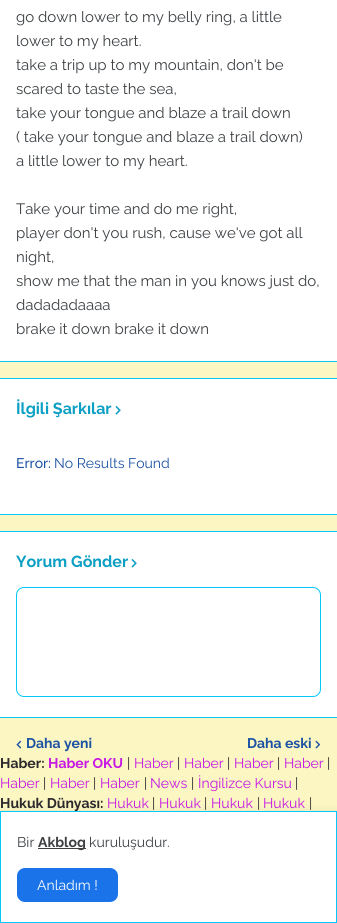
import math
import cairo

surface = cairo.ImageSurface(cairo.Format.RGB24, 337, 923)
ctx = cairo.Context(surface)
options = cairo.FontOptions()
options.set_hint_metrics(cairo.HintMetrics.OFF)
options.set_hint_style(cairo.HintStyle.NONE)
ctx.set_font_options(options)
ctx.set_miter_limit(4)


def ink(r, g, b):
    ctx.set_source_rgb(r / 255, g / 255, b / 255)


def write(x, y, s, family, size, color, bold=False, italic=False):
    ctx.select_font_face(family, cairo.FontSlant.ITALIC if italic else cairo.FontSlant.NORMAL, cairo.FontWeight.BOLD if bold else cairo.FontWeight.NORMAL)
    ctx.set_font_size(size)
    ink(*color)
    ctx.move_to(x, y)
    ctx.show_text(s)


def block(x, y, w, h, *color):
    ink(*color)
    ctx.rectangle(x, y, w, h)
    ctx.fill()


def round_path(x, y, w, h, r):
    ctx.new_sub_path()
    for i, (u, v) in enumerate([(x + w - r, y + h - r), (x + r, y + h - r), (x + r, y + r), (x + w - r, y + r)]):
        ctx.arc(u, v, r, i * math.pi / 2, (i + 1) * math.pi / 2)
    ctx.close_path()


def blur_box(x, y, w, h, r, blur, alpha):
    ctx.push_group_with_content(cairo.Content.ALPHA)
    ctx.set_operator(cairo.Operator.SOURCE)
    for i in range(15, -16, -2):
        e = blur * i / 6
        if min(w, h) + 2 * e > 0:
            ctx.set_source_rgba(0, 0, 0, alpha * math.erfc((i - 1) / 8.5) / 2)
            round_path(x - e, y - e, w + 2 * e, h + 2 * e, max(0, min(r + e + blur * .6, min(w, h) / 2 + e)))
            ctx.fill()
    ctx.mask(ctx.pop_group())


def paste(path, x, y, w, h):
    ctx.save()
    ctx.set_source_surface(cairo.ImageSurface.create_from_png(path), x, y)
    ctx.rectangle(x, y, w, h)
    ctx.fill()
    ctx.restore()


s1 = dict(family="Raleway", size=15, color=(60, 64, 67))
s2 = dict(family="Raleway", size=16, color=(11, 159, 195), bold=True)
s3 = dict(family="Raleway Medium", size=14, color=(28, 82, 164))
s4 = dict(family="Raleway", size=14, color=(28, 82, 164))
s5 = dict(family="Raleway", size=14, color=(28, 82, 164), bold=True)
s6 = dict(family="Raleway", size=14, color=(44, 41, 45), bold=True)
s7 = dict(family="Raleway", size=14, color=(198, 23, 228), bold=True)
s8 = dict(family="Raleway", size=14, color=(44, 41, 45))
s9 = dict(family="Raleway", size=14, color=(198, 23, 228))
s10 = dict(family="Raleway", size=14, color=(60, 64, 67))
s11 = dict(family="Raleway", size=14, color=(60, 64, 67), bold=True)
s12 = dict(family="Raleway", size=14, color=(255, 255, 255))

ink(251, 246, 194)
ctx.paint()
block(0, 0, 337, 361, 255, 255, 255)
block(0, 361, 337, 1, 4, 200, 249)
write(16, 22, "go down lower to my belly ring, a little", **s1)
write(16, 46, "lower to my heart.", **s1)
write(16, 70, "take a trip up to my mountain, don't be", **s1)
write(16, 94, "scared to taste the sea,", **s1)
write(16, 118, "take your tongue and blaze a trail down", **s1)
write(16, 142, "( take your tongue and blaze a trail down)", **s1)
write(16, 166, "a little lower to my heart.", **s1)
write(16, 214, "Take your time and do me right,", **s1)
write(16, 238, "player don't you rush, cause we've got all", **s1)
write(16, 262, "night,", **s1)
write(16, 286, "show me that the man in you knows just do,", **s1)
write(16, 310, "dadadadaaaa", **s1)
write(16, 334, "brake it down brake it down", **s1)
block(0, 379, 337, 135, 255, 255, 255)
block(0, 378, 337, 1, 4, 200, 249)
block(0, 514, 337, 1, 4, 200, 249)
write(16, 414, "İlgili Şarkılar", **s2)
paste("pic1.png", 115, 406, 6, 9)
write(16, 468, "Error:", **s3)
write(54, 468, "No Results Found", **s4)
block(0, 532, 337, 185, 255, 255, 255)
block(0, 531, 337, 1, 4, 200, 249)
block(0, 717, 337, 1, 4, 200, 249)
write(16, 567, "Yorum Gönder", **s2)
paste("pic1.png", 131, 559, 6, 9)
round_path(16.5, 587.5, 304, 109, 7.5)
ink(4, 200, 249)
ctx.set_line_width(1)
ctx.stroke()
paste("pic2.png", 16, 740, 6, 9)
write(26, 748, "Daha yeni", **s5)
write(247, 748, "Daha eski", **s5)
paste("pic3.png", 315, 740, 6, 9)
write(0, 768, "Haber:", **s6)
write(48, 768, "Haber OKU", **s7)
write(127, 768, "|", **s8)
write(134, 768, "Haber", **s9)
write(177, 768, "|", **s8)
write(184, 768, "Haber", **s9)
write(227, 768, "|", **s8)
write(234, 768, "Haber", **s9)
write(277, 768, "|", **s8)
write(284, 768, "Haber", **s9)
write(327, 768, "|", **s8)
write(0, 788, "Haber", **s9)
write(43, 788, "|", **s8)
write(50, 788, "Haber", **s9)
write(93, 788, "|", **s8)
write(100, 788, "Haber", **s9)
write(144, 788, "|", **s8)
write(150, 788, "News", **s9)
write(191, 788, "|", **s8)
write(198, 788, "İngilizce Kursu", **s9)
write(295, 788, "|", **s8)
write(0, 808, "Hukuk Dünyası:", **s6)
write(107, 808, "Hukuk", **s9)
write(152, 808, "|", **s8)
write(159, 808, "Hukuk", **s9)
write(204, 808, "|", **s8)
write(211, 808, "Hukuk", **s9)
write(257, 808, "|", **s8)
write(263, 808, "Hukuk", **s9)
write(309, 808, "|", **s8)
ink(0, 0, 0)
blur_box(0, 812, 337, 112, 0, 4, 0.1)
ink(255, 255, 255)
ctx.rectangle(0.5, 811.5, 336, 111)
ctx.fill_preserve()
ink(4, 200, 249)
ctx.stroke()
write(17, 847, "Bir", **s10)
block(38, 848, 48, 1, 60, 64, 67)
write(38, 847, "Akblog", **s11)
write(89, 847, "kuruluşudur.", **s10)
ink(26, 115, 232)
round_path(17, 868, 101, 34, 8)
ctx.fill()
write(37, 890, "Anladım !", **s12)
surface.write_to_png("screenshot.png")
